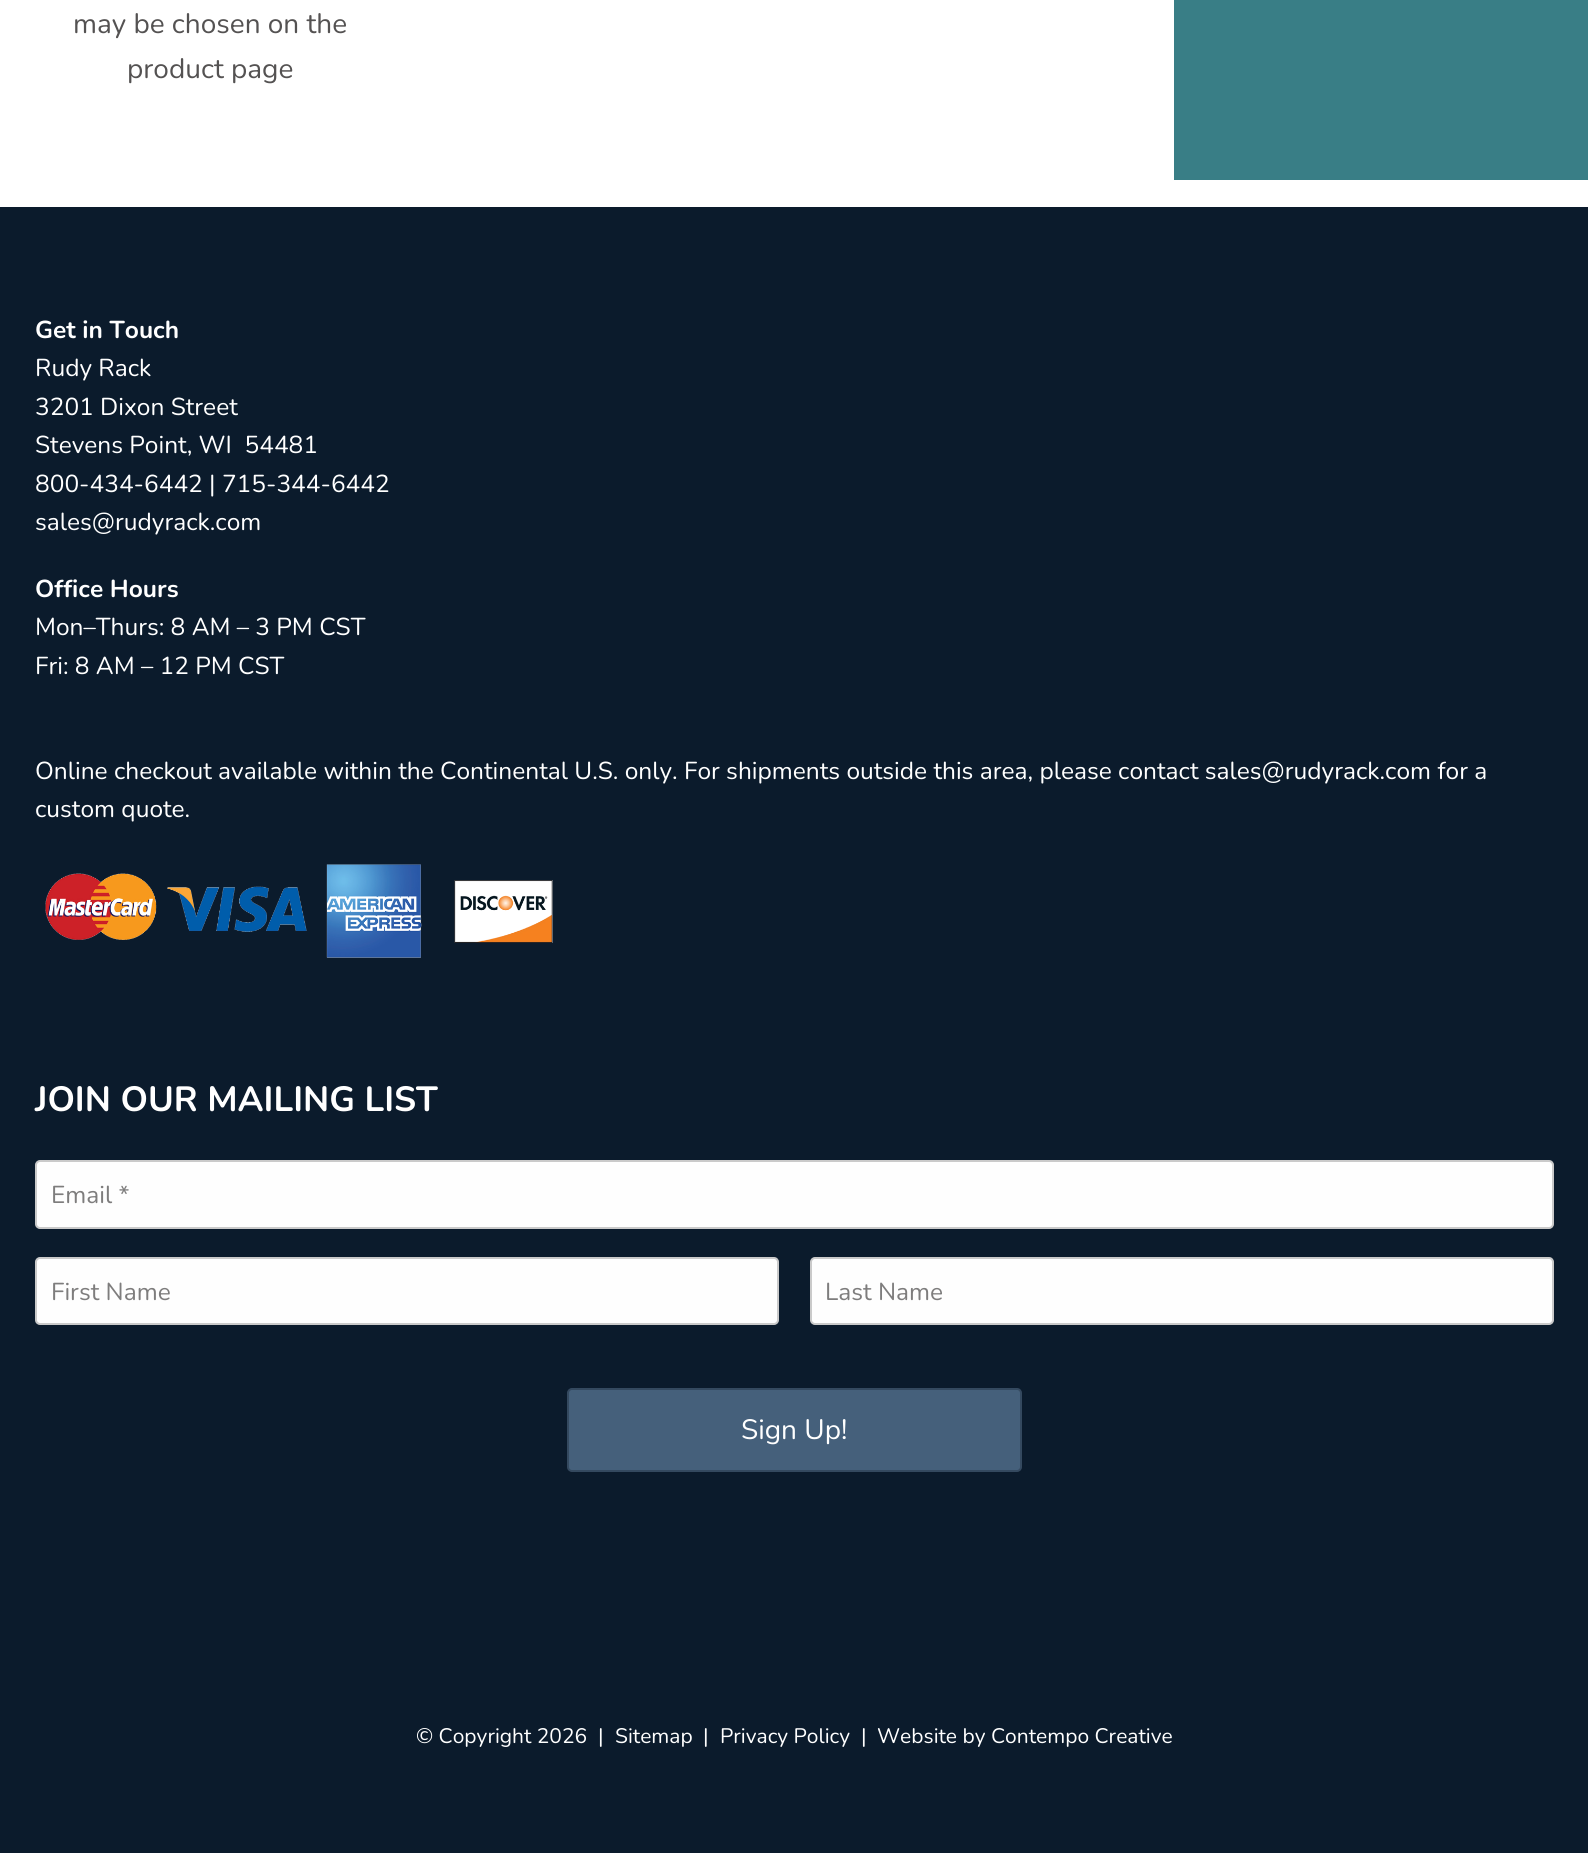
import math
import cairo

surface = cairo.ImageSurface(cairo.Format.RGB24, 1588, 1853)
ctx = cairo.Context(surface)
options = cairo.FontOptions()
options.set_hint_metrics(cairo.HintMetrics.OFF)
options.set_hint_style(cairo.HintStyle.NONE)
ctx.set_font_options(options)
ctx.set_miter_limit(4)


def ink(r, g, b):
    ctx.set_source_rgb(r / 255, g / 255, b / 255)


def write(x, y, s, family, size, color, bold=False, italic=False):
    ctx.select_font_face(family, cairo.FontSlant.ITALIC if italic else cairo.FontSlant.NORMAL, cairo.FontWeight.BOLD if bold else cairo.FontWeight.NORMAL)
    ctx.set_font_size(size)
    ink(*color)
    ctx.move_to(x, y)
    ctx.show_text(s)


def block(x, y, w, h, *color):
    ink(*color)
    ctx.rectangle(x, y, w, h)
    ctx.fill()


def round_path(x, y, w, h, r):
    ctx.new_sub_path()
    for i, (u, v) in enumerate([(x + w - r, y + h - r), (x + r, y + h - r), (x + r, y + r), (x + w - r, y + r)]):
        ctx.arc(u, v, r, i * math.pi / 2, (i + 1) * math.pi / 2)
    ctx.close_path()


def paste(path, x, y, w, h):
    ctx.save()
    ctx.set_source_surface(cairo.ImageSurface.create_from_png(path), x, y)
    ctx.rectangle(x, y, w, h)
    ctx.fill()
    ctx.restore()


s1 = dict(family="Nunito ExtraLight", size=28, color=(84, 82, 82))
s2 = dict(family="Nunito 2 ExtraLight", size=24.5, color=(255, 255, 255))
s3 = dict(family="Nunito ExtraLight", size=24.5, color=(255, 255, 255))
s4 = dict(family="Nunito 2 ExtraLight", size=35, color=(255, 255, 255))
s5 = dict(family="Nunito ExtraLight", size=24.5, color=(126, 125, 125))
s6 = dict(family="Nunito ExtraLight", size=28, color=(255, 255, 255))
s7 = dict(family="Nunito ExtraLight", size=21, color=(255, 255, 255))

ink(255, 255, 255)
ctx.paint()
write(73, 33, "may be chosen on the", **s1)
write(127, 78, "product page", **s1)
block(1174, 0, 414, 180, 57, 126, 134)
block(0, 207, 1588, 1646, 11, 27, 44)
write(35, 338, "Get in Touch", **s2)
write(35, 376, "Rudy Rack", **s3)
write(35, 415, "3201 Dixon Street", **s3)
write(35, 453, "Stevens Point, WI  54481", **s3)
write(35, 492, "800-434-6442 | 715-344-6442", **s3)
write(35, 530, "sales@rudyrack.com", **s3)
write(35, 597, "Office Hours", **s2)
write(35, 635, "Mon–Thurs: 8 AM – 3 PM CST", **s3)
write(35, 674, "Fri: 8 AM – 12 PM CST", **s3)
write(35, 779, "Online checkout available within the Continental U.S. only. For shipments outside this area, please contact sales@rudyrack.com for a", **s3)
write(35, 817, "custom quote.", **s3)
paste("pic1.png", 45, 864, 508, 94)
write(35, 1111, "JOIN OUR MAILING LIST", **s4)
ink(254, 254, 254)
round_path(36, 1161, 1517, 67, 4)
ctx.fill_preserve()
ink(202, 202, 202)
ctx.stroke()
write(51, 1203, "Email *", **s5)
ink(254, 254, 254)
round_path(36, 1258, 742, 66, 4)
ctx.fill_preserve()
ink(202, 202, 202)
ctx.stroke()
write(51, 1300, "First Name", **s5)
ink(254, 254, 254)
round_path(811, 1258, 742, 66, 4)
ctx.fill_preserve()
ink(202, 202, 202)
ctx.stroke()
write(825, 1300, "Last Name", **s5)
ink(69, 96, 123)
round_path(568, 1389, 453, 82, 4)
ctx.fill_preserve()
ink(52, 73, 95)
ctx.stroke()
write(741, 1439, "Sign Up!", **s6)
write(416, 1743, "© Copyright 2026  |", **s7)
write(615, 1743, "Sitemap", **s7)
write(703, 1743, "|", **s7)
write(720, 1743, "Privacy Policy", **s7)
write(861, 1743, "|", **s7)
write(877, 1743, "Website by Contempo Creative", **s7)
surface.write_to_png("screenshot.png")
